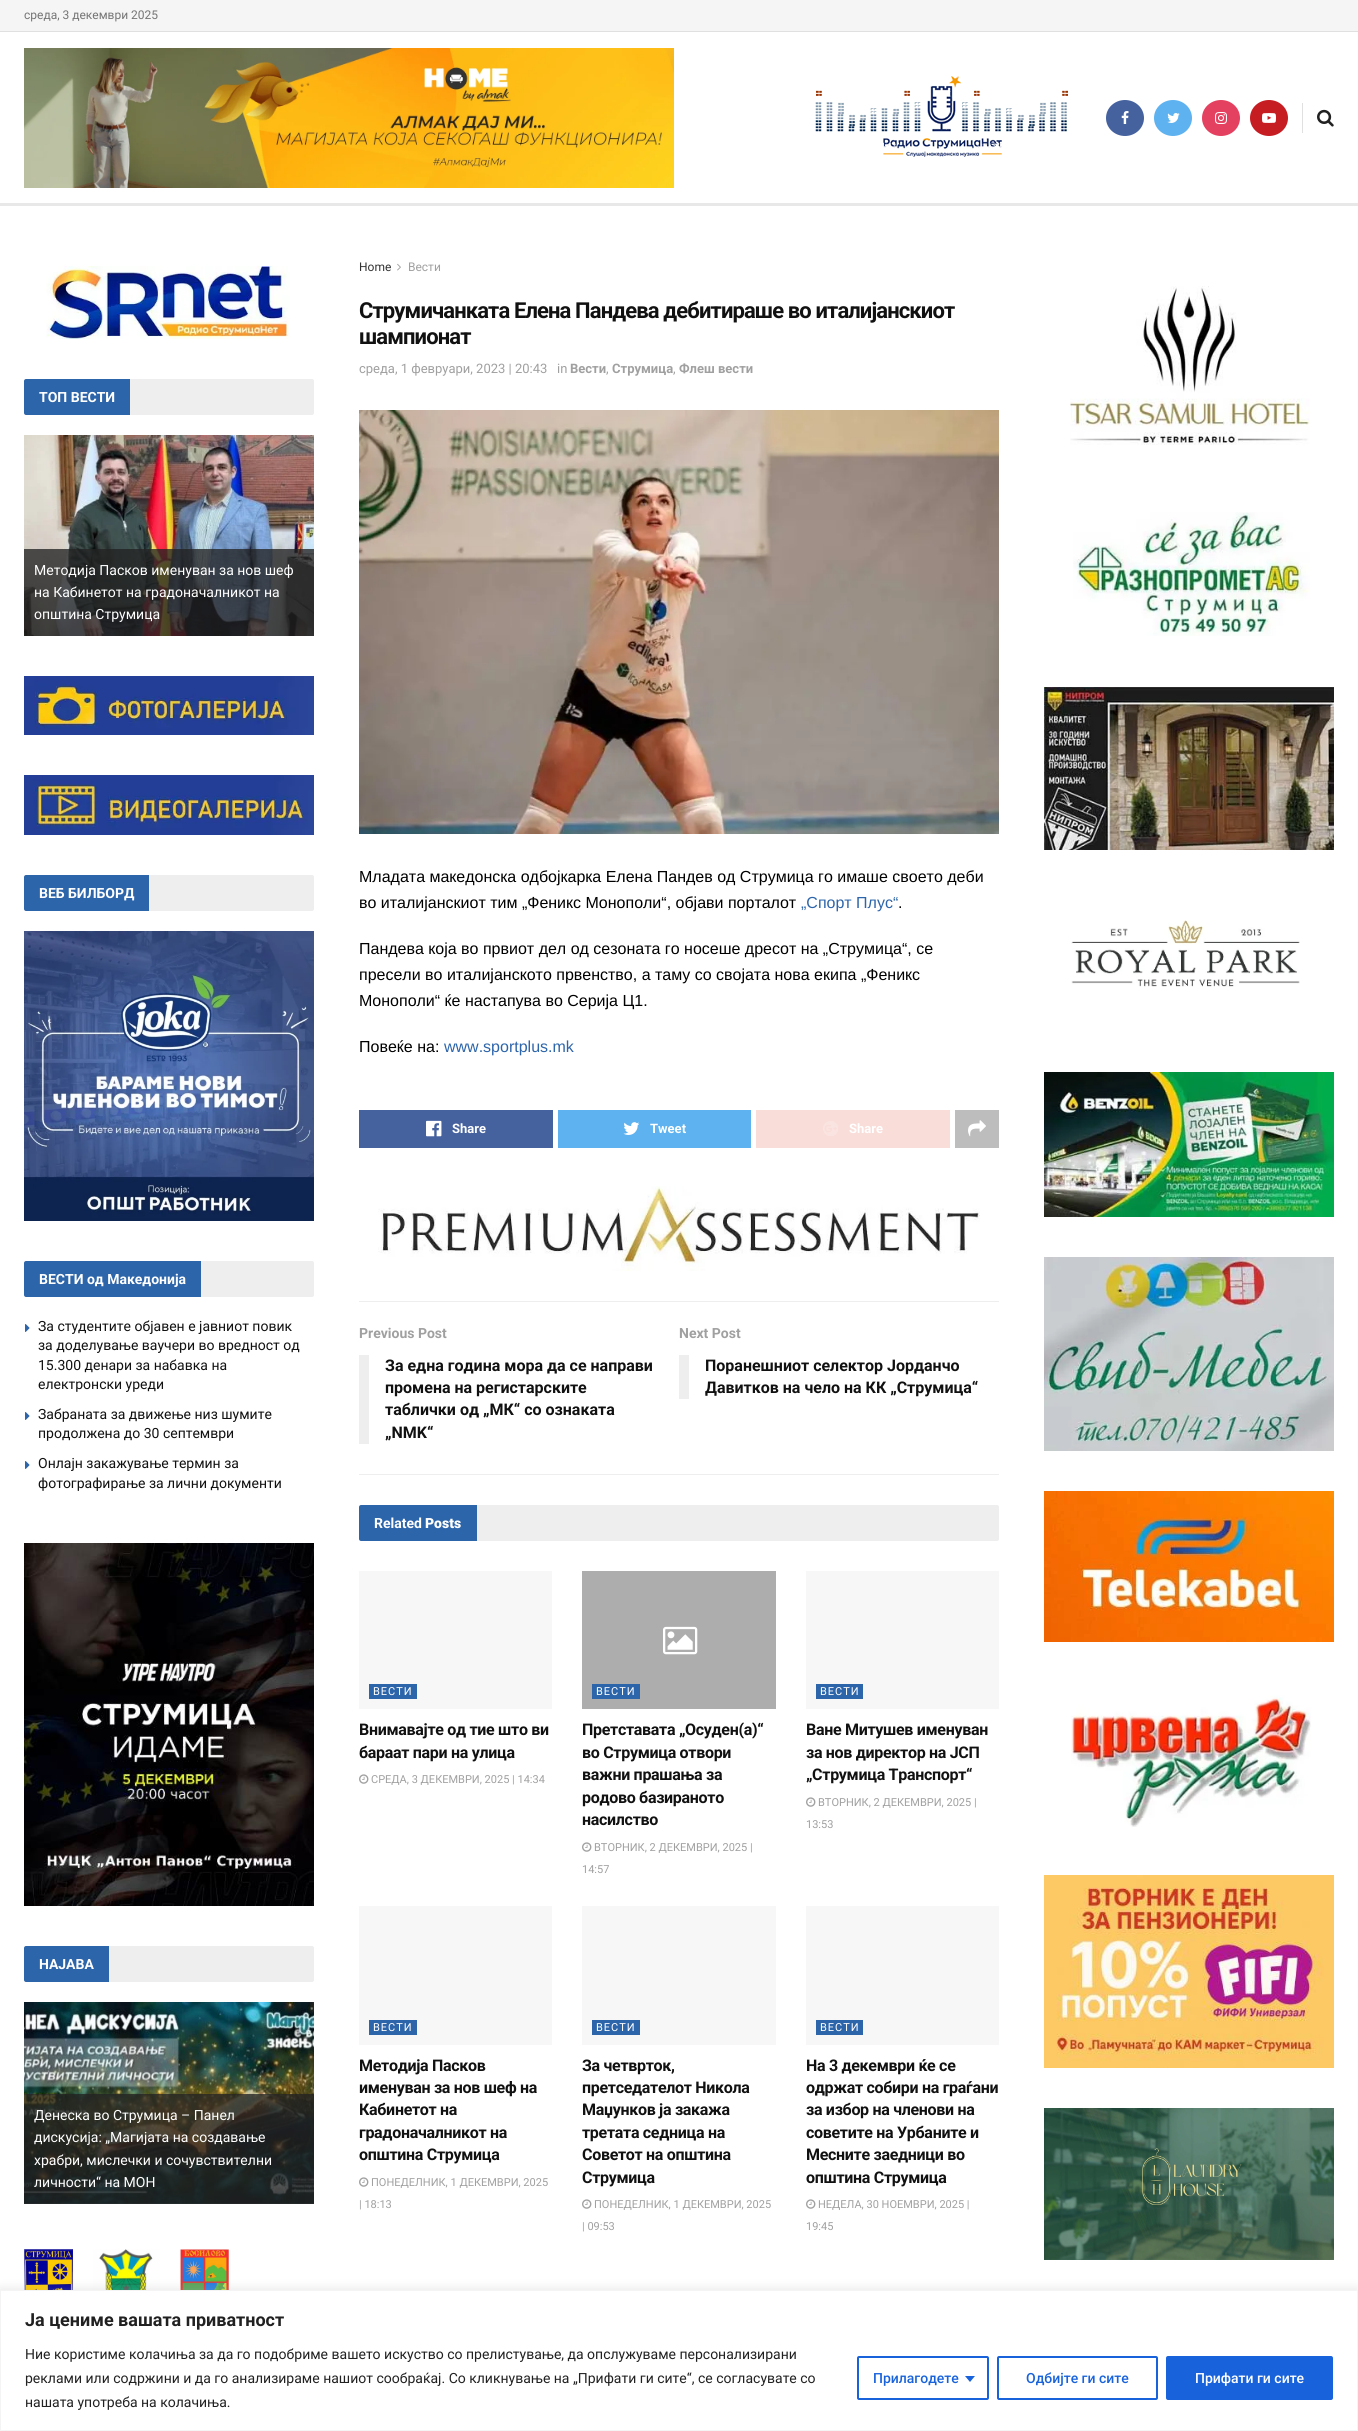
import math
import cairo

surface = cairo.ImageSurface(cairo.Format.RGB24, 1358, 2431)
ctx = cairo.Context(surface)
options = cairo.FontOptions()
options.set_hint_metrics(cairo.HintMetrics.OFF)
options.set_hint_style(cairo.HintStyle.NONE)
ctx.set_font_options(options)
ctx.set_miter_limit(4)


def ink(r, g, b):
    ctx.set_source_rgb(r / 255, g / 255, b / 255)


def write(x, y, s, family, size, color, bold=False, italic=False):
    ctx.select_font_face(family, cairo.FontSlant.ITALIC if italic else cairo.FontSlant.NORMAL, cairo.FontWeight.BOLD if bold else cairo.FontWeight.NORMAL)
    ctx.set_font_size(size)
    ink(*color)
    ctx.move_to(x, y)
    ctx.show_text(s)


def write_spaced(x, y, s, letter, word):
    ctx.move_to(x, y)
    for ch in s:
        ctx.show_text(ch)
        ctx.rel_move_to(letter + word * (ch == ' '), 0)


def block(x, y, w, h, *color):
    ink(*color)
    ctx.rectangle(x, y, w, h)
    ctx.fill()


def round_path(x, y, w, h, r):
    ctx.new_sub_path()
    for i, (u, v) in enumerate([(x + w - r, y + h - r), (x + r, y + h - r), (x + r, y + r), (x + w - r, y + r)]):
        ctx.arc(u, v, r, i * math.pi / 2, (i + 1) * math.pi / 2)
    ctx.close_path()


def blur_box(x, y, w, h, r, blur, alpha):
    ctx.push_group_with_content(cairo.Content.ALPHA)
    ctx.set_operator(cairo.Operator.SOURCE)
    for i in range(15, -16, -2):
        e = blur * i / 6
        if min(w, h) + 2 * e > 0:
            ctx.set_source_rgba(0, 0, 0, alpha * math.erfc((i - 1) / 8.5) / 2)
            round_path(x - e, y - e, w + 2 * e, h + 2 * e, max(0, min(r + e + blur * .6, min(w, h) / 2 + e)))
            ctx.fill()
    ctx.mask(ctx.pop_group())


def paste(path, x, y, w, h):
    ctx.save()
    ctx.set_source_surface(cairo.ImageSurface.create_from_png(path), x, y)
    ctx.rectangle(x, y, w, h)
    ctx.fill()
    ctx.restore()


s1 = dict(family="Roboto", size=12, color=(117, 117, 117))
s2 = dict(family="Roboto", size=14, color=(255, 255, 255), bold=True)
s3 = dict(family="Roboto", size=14, color=(255, 255, 255))
s4 = dict(family="Roboto", size=14, color=(17, 17, 17))
s5 = dict(family="Roboto", size=12, color=(50, 50, 50))
s6 = dict(family="Roboto", size=12, color=(160, 160, 160))
s7 = dict(family="Roboto", size=13, color=(160, 160, 160))
s8 = dict(family="Roboto", size=13, color=(160, 160, 160), bold=True)
s9 = dict(family="Liberation Sans", size=16, color=(0, 0, 0))
s10 = dict(family="Liberation Sans", size=16, color=(45, 101, 170))
s11 = dict(family="Roboto", size=13, color=(255, 255, 255), bold=True)
s12 = dict(family="Roboto", size=14, color=(160, 160, 160), bold=True)
s13 = dict(family="Roboto", size=16, color=(17, 17, 17), bold=True)
s14 = dict(family="Roboto Black", size=14, color=(255, 255, 255))
s15 = dict(family="Roboto", size=11, color=(160, 160, 160))
s16 = dict(family="Roboto", size=18, color=(33, 33, 33), bold=True)
s17 = dict(family="Roboto", size=14, color=(33, 33, 33))
s18 = dict(family="Roboto Medium", size=14, color=(24, 99, 220))
s19 = dict(family="Roboto Medium", size=14, color=(255, 255, 255))

ink(255, 255, 255)
ctx.paint()
block(0, 0, 1358, 31, 245, 245, 245)
block(0, 31, 1358, 1, 224, 224, 224)
write(24, 19, "среда, 3 декември 2025", **s1)
block(0, 203, 1358, 3, 232, 232, 232)
paste("pic1.png", 24, 48, 650, 140)
paste("pic2.png", 815, 75, 253, 82)
ink(69, 98, 159)
ctx.new_path()
ctx.move_to(1125, 100)
ctx.curve_to(1135.5, 100, 1144, 108, 1144, 118)
ctx.curve_to(1144, 128, 1135.5, 136, 1125, 136)
ctx.curve_to(1114.5, 136, 1106, 128, 1106, 118)
ctx.curve_to(1106, 108, 1114.5, 100, 1125, 100)
ctx.close_path()
ctx.fill()
paste("pic3.png", 1121, 111, 8, 13)
ink(94, 178, 239)
ctx.new_path()
ctx.move_to(1173, 100)
ctx.curve_to(1183.5, 100, 1192, 108, 1192, 118)
ctx.curve_to(1192, 128, 1183.5, 136, 1173, 136)
ctx.curve_to(1162.5, 136, 1154, 128, 1154, 118)
ctx.curve_to(1154, 108, 1162.5, 100, 1173, 100)
ctx.close_path()
ctx.fill()
paste("pic4.png", 1167, 113, 13, 10)
ink(228, 64, 95)
ctx.new_path()
ctx.move_to(1221, 100)
ctx.curve_to(1231.5, 100, 1240, 108, 1240, 118)
ctx.curve_to(1240, 128, 1231.5, 136, 1221, 136)
ctx.curve_to(1210.5, 136, 1202, 128, 1202, 118)
ctx.curve_to(1202, 108, 1210.5, 100, 1221, 100)
ctx.close_path()
ctx.fill()
paste("pic5.png", 1215, 112, 12, 12)
ink(198, 29, 35)
ctx.new_path()
ctx.move_to(1269, 100)
ctx.curve_to(1279.5, 100, 1288, 108, 1288, 118)
ctx.curve_to(1288, 128, 1279.5, 136, 1269, 136)
ctx.curve_to(1258.5, 136, 1250, 128, 1250, 118)
ctx.curve_to(1250, 108, 1258.5, 100, 1269, 100)
ctx.close_path()
ctx.fill()
paste("pic6.png", 1262, 113, 14, 10)
block(1302, 103, 1, 30, 224, 224, 224)
paste("pic7.png", 1317, 109, 17, 18)
paste("pic8.png", 46, 266, 244, 73)
ink(238, 238, 238)
round_path(24, 379, 290, 36, 2)
ctx.fill()
ink(45, 101, 170)
ctx.new_path()
ctx.move_to(26, 379)
ctx.line_to(130, 379)
ctx.line_to(130, 415)
ctx.line_to(26, 415)
ctx.curve_to(25, 415, 24, 414, 24, 413)
ctx.line_to(24, 381)
ctx.curve_to(24, 380, 25, 379, 26, 379)
ctx.close_path()
ctx.fill()
write(39, 402, "ТОП ВЕСТИ", **s2)
paste("pic9.png", 24, 435, 290, 201)
ctx.set_source_rgba(0.133, 0.133, 0.133, 0.77)
ctx.rectangle(24, 549, 290, 87)
ctx.fill()
write(34, 575, "Методија Пасков именуван за нов шеф", **s3)
write(34, 597, "на Кабинетот на градоначалникот на", **s3)
write(34, 619, "општина Струмица", **s3)
paste("pic10.png", 24, 676, 290, 59)
paste("pic11.png", 24, 775, 290, 60)
ink(238, 238, 238)
round_path(24, 875, 290, 36, 2)
ctx.fill()
ink(45, 101, 170)
ctx.new_path()
ctx.move_to(26, 875)
ctx.line_to(149, 875)
ctx.line_to(149, 911)
ctx.line_to(26, 911)
ctx.curve_to(25, 911, 24, 910, 24, 909)
ctx.line_to(24, 877)
ctx.curve_to(24, 876, 25, 875, 26, 875)
ctx.close_path()
ctx.fill()
write(39, 898, "ВЕБ БИЛБОРД", **s2)
paste("pic12.png", 24, 931, 290, 290)
ink(238, 238, 238)
round_path(24, 1261, 290, 36, 2)
ctx.fill()
ink(45, 101, 170)
ctx.new_path()
ctx.move_to(26, 1261)
ctx.line_to(201, 1261)
ctx.line_to(201, 1297)
ctx.line_to(26, 1297)
ctx.curve_to(25, 1297, 24, 1296, 24, 1295)
ctx.line_to(24, 1263)
ctx.curve_to(24, 1262, 25, 1261, 26, 1261)
ctx.close_path()
ctx.fill()
write(39, 1284, "ВЕСТИ од Македонија", **s2)
paste("pic13.png", 25, 1324, 5, 8)
write(38, 1331, "За студентите објавен е јавниот повик", **s4)
write(38, 1350, "за доделување ваучери во вредност од", **s4)
write(38, 1370, "15.300 денари за набавка на", **s4)
write(38, 1389, "електронски уреди", **s4)
paste("pic13.png", 25, 1412, 5, 8)
write(38, 1419, "Забраната за движење низ шумите", **s4)
write(38, 1438, "продолжена до 30 септември", **s4)
paste("pic13.png", 25, 1461, 5, 8)
write(38, 1468, "Онлајн закажување термин за", **s4)
write(38, 1488, "фотографирање за лични документи", **s4)
paste("pic14.png", 24, 1543, 290, 363)
ink(238, 238, 238)
round_path(24, 1946, 290, 36, 2)
ctx.fill()
ink(45, 101, 170)
ctx.new_path()
ctx.move_to(26, 1946)
ctx.line_to(109, 1946)
ctx.line_to(109, 1982)
ctx.line_to(26, 1982)
ctx.curve_to(25, 1982, 24, 1981, 24, 1980)
ctx.line_to(24, 1948)
ctx.curve_to(24, 1947, 25, 1946, 26, 1946)
ctx.close_path()
ctx.fill()
write(39, 1969, "НАЈАВА", **s2)
paste("pic15.png", 24, 2002, 290, 202)
ctx.set_source_rgba(0.133, 0.133, 0.133, 0.77)
ctx.rectangle(24, 2094, 290, 110)
ctx.fill()
write(34, 2120, "Денеска во Струмица – Панел", **s3)
write(34, 2142, "дискусија: „Магијата на создавање", **s3)
write(34, 2165, "храбри, мислечки и сочувствителни", **s3)
write(34, 2187, "личности“ на МОН", **s3)
paste("pic16.png", 24, 2249, 49, 41)
paste("pic17.png", 93, 2249, 67, 41)
paste("pic18.png", 180, 2249, 49, 41)
write(359, 271, "Home", **s5)
paste("pic19.png", 397, 263, 4, 8)
write(408, 271, "Вести", **s6)
ctx.select_font_face("Roboto", cairo.FontSlant.NORMAL, cairo.FontWeight.BOLD)
ctx.set_font_size(22)
ink(17, 17, 17)
write_spaced(359, 318, "Струмичанката Елена Пандева дебитираше во италијанскиот", -0.88, 0)
write_spaced(359, 344, "шампионат", -0.88, 0)
write(359, 373, "среда, 1 февруари, 2023 | 20:43", **s7)
write(557, 373, "in", **s7)
write(570, 373, "Вести", **s8)
write(606, 373, ",", **s7)
write(612, 373, "Струмица", **s8)
write(673, 373, ",", **s7)
write(679, 373, "Флеш вести", **s8)
paste("pic20.png", 359, 410, 640, 424)
write(359, 882, "Младата македонска одбојкарка Елена Пандев од Струмица го имаше своето деби", **s9)
write(359, 908, "во италијанскиот тим „Феникс Монополи“, објави порталот", **s9)
write(801, 908, "„Спорт Плус“", **s10)
write(898, 908, ".", **s9)
write(359, 954, "Пандева која во првиот дел од сезоната го носеше дресот на „Струмица“, се", **s9)
write(359, 980, "пресели во италијанското првенство, а таму со својата нова екипа „Феникс", **s9)
write(359, 1006, "Монополи“ ќе настапува во Серија Ц1.", **s9)
write(359, 1052, "Повеќе на:", **s9)
write(444, 1052, "www.sportplus.mk", **s10)
block(359, 1110, 194, 38, 69, 98, 159)
paste("pic21.png", 426, 1120, 16, 17)
write(452, 1133, "Share", **s11)
block(558, 1110, 193, 38, 94, 178, 239)
paste("pic22.png", 623, 1122, 17, 13)
write(650, 1133, "Tweet", **s11)
block(756, 1110, 194, 38, 249, 221, 217)
paste("pic23.png", 823, 1121, 15, 15)
write(849, 1133, "Share", **s11)
block(955, 1110, 44, 38, 189, 189, 189)
paste("pic24.png", 968, 1120, 18, 17)
paste("pic25.png", 378, 1186, 602, 85)
block(359, 1301, 640, 1, 238, 238, 238)
block(359, 1474, 640, 1, 238, 238, 238)
write(359, 1338, "Previous Post", **s12)
block(359, 1355, 10, 89, 238, 238, 238)
write(385, 1371, "За една година мора да се направи", **s13)
write(385, 1393, "промена на регистарските", **s13)
write(385, 1415, "таблички од „МК“ со ознаката", **s13)
write(385, 1438, "„NMK“", **s13)
write(679, 1338, "Next Post", **s12)
block(679, 1355, 10, 44, 238, 238, 238)
write(705, 1371, "Поранешниот селектор Јорданчо", **s13)
write(705, 1393, "Давитков на чело на КК „Струмица“", **s13)
ink(238, 238, 238)
round_path(359, 1505, 640, 36, 2)
ctx.fill()
ink(45, 101, 170)
ctx.new_path()
ctx.move_to(361, 1505)
ctx.line_to(477, 1505)
ctx.line_to(477, 1541)
ctx.line_to(361, 1541)
ctx.curve_to(360, 1541, 359, 1540, 359, 1539)
ctx.line_to(359, 1507)
ctx.curve_to(359, 1506, 360, 1505, 361, 1505)
ctx.close_path()
ctx.fill()
write(374, 1528, "Related", **s2)
write(425, 1528, "Posts", **s14)
block(359, 1571, 193, 138, 247, 247, 247)
block(369, 1684, 48, 15, 45, 101, 170)
ctx.select_font_face("Roboto")
ctx.set_font_size(11)
ink(255, 255, 255)
write_spaced(373, 1695, "ВЕСТИ", 1, 0)
ctx.select_font_face("Roboto", cairo.FontSlant.NORMAL, cairo.FontWeight.BOLD)
ctx.set_font_size(16)
ink(17, 17, 17)
write_spaced(359, 1735, "Внимавајте од тие што ви", -0.3, 0)
write_spaced(359, 1758, "бараат пари на улица", -0.3, 0)
paste("pic26.png", 359, 1774, 10, 10)
write(371, 1783, "СРЕДА, 3 ДЕКЕМВРИ, 2025 | 14:34", **s15)
block(582, 1571, 194, 138, 173, 173, 173)
paste("pic27.png", 663, 1626, 35, 29)
block(592, 1684, 48, 15, 45, 101, 170)
ink(255, 255, 255)
write_spaced(596, 1695, "ВЕСТИ", 1, 0)
ctx.select_font_face("Roboto", cairo.FontSlant.NORMAL, cairo.FontWeight.BOLD)
ctx.set_font_size(16)
ink(17, 17, 17)
write_spaced(582, 1735, "Претставата „Осуден(а)“", -0.3, 0)
write_spaced(582, 1758, "во Струмица отвори", -0.3, 0)
write_spaced(582, 1780, "важни прашања за", -0.3, 0)
write_spaced(582, 1803, "родово базираното", -0.3, 0)
write_spaced(582, 1825, "насилство", -0.3, 0)
paste("pic26.png", 582, 1842, 10, 10)
write(594, 1851, "ВТОРНИК, 2 ДЕКЕМВРИ, 2025 |", **s15)
write(582, 1873, "14:57", **s15)
block(806, 1571, 193, 138, 247, 247, 247)
block(816, 1684, 47, 15, 45, 101, 170)
ink(255, 255, 255)
write_spaced(820, 1695, "ВЕСТИ", 1, 0)
ctx.select_font_face("Roboto", cairo.FontSlant.NORMAL, cairo.FontWeight.BOLD)
ctx.set_font_size(16)
ink(17, 17, 17)
write_spaced(806, 1735, "Ване Митушев именуван", -0.3, 0)
write_spaced(806, 1758, "за нов директор на ЈСП", -0.3, 0)
write_spaced(806, 1780, "„Струмица Транспорт“", -0.3, 0)
paste("pic26.png", 806, 1797, 10, 10)
write(818, 1806, "ВТОРНИК, 2 ДЕКЕМВРИ, 2025 |", **s15)
write(806, 1828, "13:53", **s15)
block(359, 1906, 193, 139, 247, 247, 247)
block(369, 2020, 48, 15, 45, 101, 170)
ink(255, 255, 255)
write_spaced(373, 2031, "ВЕСТИ", 1, 0)
ctx.select_font_face("Roboto", cairo.FontSlant.NORMAL, cairo.FontWeight.BOLD)
ctx.set_font_size(16)
ink(17, 17, 17)
write_spaced(359, 2071, "Методија Пасков", -0.3, 0)
write_spaced(359, 2093, "именуван за нов шеф на", -0.3, 0)
write_spaced(359, 2115, "Кабинетот на", -0.3, 0)
write_spaced(359, 2138, "градоначалникот на", -0.3, 0)
write_spaced(359, 2160, "општина Струмица", -0.3, 0)
paste("pic26.png", 359, 2177, 10, 10)
write(371, 2186, "ПОНЕДЕЛНИК, 1 ДЕКЕМВРИ, 2025", **s15)
write(359, 2208, "| 18:13", **s15)
block(582, 1906, 194, 139, 247, 247, 247)
block(592, 2020, 48, 15, 45, 101, 170)
ink(255, 255, 255)
write_spaced(596, 2031, "ВЕСТИ", 1, 0)
ctx.select_font_face("Roboto", cairo.FontSlant.NORMAL, cairo.FontWeight.BOLD)
ctx.set_font_size(16)
ink(17, 17, 17)
write_spaced(582, 2071, "За четврток,", -0.3, 0)
write_spaced(582, 2093, "претседателот Никола", -0.3, 0)
write_spaced(582, 2115, "Маџунков ја закажа", -0.3, 0)
write_spaced(582, 2138, "третата седница на", -0.3, 0)
write_spaced(582, 2160, "Советот на општина", -0.3, 0)
write_spaced(582, 2183, "Струмица", -0.3, 0)
paste("pic26.png", 582, 2199, 10, 10)
write(594, 2208, "ПОНЕДЕЛНИК, 1 ДЕКЕМВРИ, 2025", **s15)
write(582, 2230, "| 09:53", **s15)
block(806, 1906, 193, 139, 247, 247, 247)
block(816, 2020, 47, 15, 45, 101, 170)
ink(255, 255, 255)
write_spaced(820, 2031, "ВЕСТИ", 1, 0)
ctx.select_font_face("Roboto", cairo.FontSlant.NORMAL, cairo.FontWeight.BOLD)
ctx.set_font_size(16)
ink(17, 17, 17)
write_spaced(806, 2071, "На 3 декември ќе се", -0.3, 0)
write_spaced(806, 2093, "одржат собири на граѓани", -0.3, 0)
write_spaced(806, 2115, "за избор на членови на", -0.3, 0)
write_spaced(806, 2138, "советите на Урбаните и", -0.3, 0)
write_spaced(806, 2160, "Месните заедници во", -0.3, 0)
write_spaced(806, 2183, "општина Струмица", -0.3, 0)
paste("pic26.png", 806, 2199, 10, 10)
write(818, 2208, "НЕДЕЛА, 30 НОЕМВРИ, 2025 |", **s15)
write(806, 2230, "19:45", **s15)
paste("pic28.png", 1070, 286, 240, 159)
paste("pic29.png", 1073, 512, 237, 124)
paste("pic30.png", 1044, 687, 290, 163)
paste("pic31.png", 1071, 920, 229, 67)
paste("pic32.png", 1044, 1072, 290, 145)
paste("pic33.png", 1044, 1257, 290, 194)
paste("pic34.png", 1044, 1491, 290, 151)
paste("pic35.png", 1071, 1695, 240, 132)
paste("pic36.png", 1044, 1875, 290, 193)
paste("pic37.png", 1044, 2108, 290, 152)
ink(172, 171, 171)
blur_box(0, 2289, 1358, 141, 0, 5, 0.3)
ink(255, 255, 255)
ctx.rectangle(0.5, 2290.5, 1357, 140)
ctx.fill_preserve()
ink(244, 244, 244)
ctx.set_line_width(1)
ctx.stroke()
write(25, 2326, "Ја цениме вашата приватност", **s16)
write(25, 2359, "Ние користиме колачиња за да го подобриме вашето искуство со прелистување, да опслужуваме персонализирани", **s17)
write(25, 2383, "реклами или содржини и да го анализираме нашиот сообраќај. Со кликнување на „Прифати ги сите“, се согласувате со", **s17)
write(25, 2407, "нашата употреба на колачиња.", **s17)
round_path(858, 2357, 130, 42, 1)
ink(24, 99, 220)
ctx.set_line_width(2)
ctx.stroke()
write(873, 2383, "Прилагодете", **s18)
ctx.new_path()
ctx.move_to(965, 2376)
ctx.line_to(975, 2376)
ctx.line_to(970, 2382)
ctx.close_path()
ctx.fill()
round_path(998, 2357, 159, 42, 1)
ctx.stroke()
write(1026, 2383, "Одбијте ги сите", **s18)
round_path(1167, 2357, 165, 42, 1)
ctx.fill_preserve()
ctx.stroke()
write(1195, 2383, "Прифати ги сите", **s19)
surface.write_to_png("screenshot.png")
